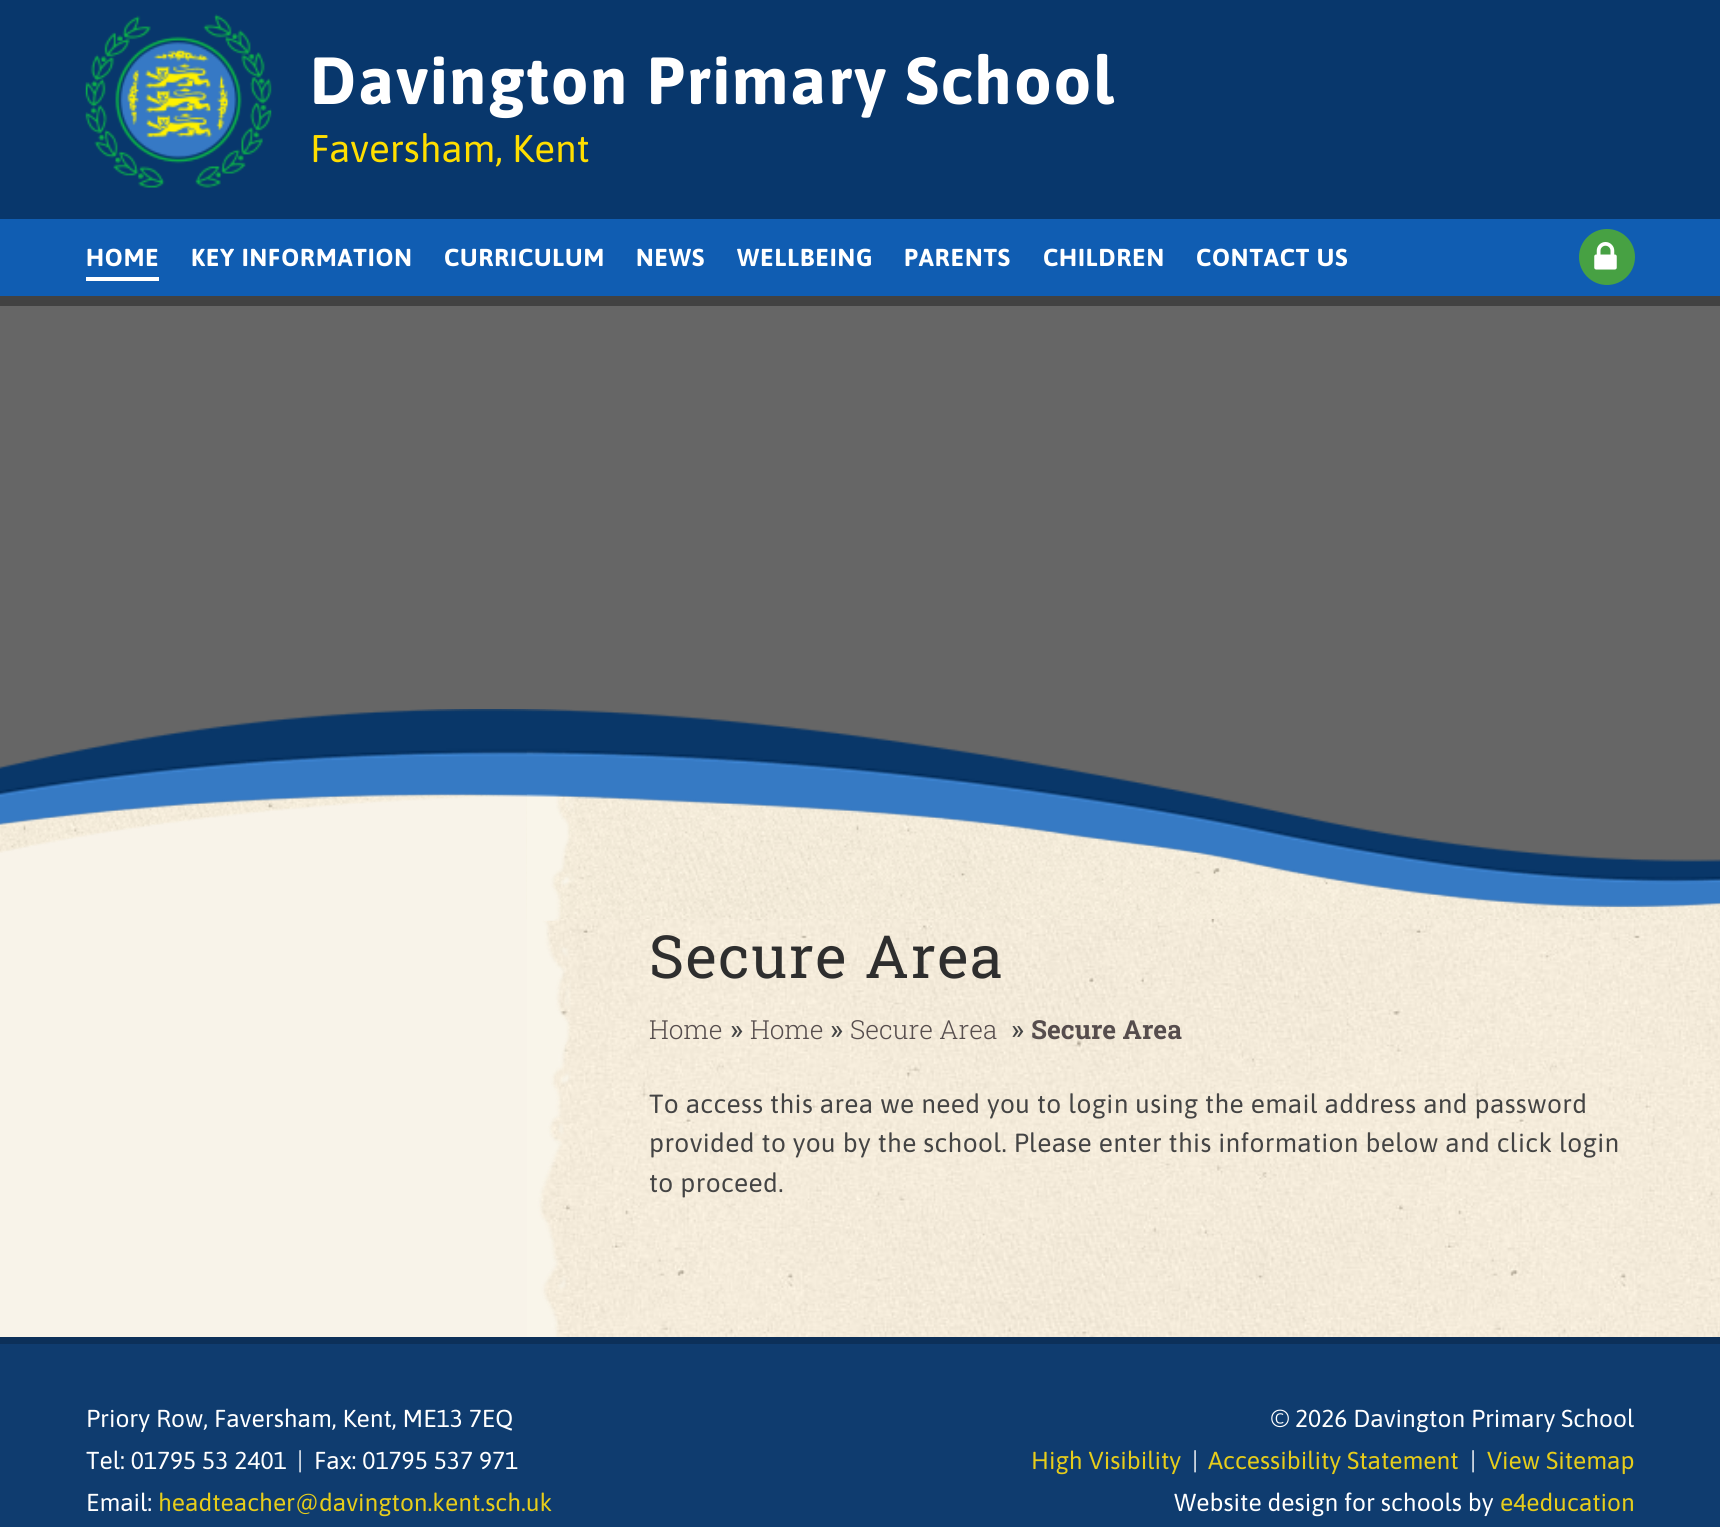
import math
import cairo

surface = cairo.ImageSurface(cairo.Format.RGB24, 1720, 1527)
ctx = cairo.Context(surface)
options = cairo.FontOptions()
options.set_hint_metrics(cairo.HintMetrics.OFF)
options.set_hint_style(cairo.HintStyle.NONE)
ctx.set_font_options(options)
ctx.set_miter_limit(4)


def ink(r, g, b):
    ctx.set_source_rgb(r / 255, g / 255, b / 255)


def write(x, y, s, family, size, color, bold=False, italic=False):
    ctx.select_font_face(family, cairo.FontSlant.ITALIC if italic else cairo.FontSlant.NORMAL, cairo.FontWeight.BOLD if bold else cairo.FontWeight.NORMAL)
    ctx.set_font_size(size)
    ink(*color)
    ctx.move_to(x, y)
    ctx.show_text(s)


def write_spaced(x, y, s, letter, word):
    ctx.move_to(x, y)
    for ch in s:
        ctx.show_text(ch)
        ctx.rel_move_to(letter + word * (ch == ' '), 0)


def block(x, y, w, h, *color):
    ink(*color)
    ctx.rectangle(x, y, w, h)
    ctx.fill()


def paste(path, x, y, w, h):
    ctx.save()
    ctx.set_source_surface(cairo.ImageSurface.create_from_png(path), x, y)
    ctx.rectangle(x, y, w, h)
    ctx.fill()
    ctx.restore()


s1 = dict(family="Asap", size=38.5, color=(255, 222, 0))
s2 = dict(family="Roboto Slab Light", size=26.25, color=(86, 77, 77))
s3 = dict(family="Roboto Slab", size=28, color=(68, 68, 68))
s4 = dict(family="Roboto Slab", size=26.25, color=(86, 77, 77), bold=True)
s5 = dict(family="Asap", size=24.5, color=(255, 255, 255))
s6 = dict(family="Asap", size=24.5, color=(231, 205, 26))

ink(255, 255, 255)
ctx.paint()
paste("pic1.png", 536, 919, 1184, 418)
block(0, 0, 1720, 219, 8, 55, 108)
paste("pic2.png", 85, 14, 187, 174)
ctx.select_font_face("Asap", cairo.FontSlant.NORMAL, cairo.FontWeight.BOLD)
ctx.set_font_size(66.5)
ink(255, 255, 255)
write_spaced(310, 104, "Davington Primary School", 1.75, 0)
write(310, 162, "Faversham, Kent", **s1)
block(0, 296, 1720, 10, 66, 66, 66)
block(0, 219, 1720, 77, 16, 93, 178)
ctx.select_font_face("Asap", cairo.FontSlant.NORMAL, cairo.FontWeight.BOLD)
ctx.set_font_size(24.5)
ink(255, 255, 255)
write_spaced(86, 266, "HOME", 0.9, 0)
block(86, 277, 73, 4, 255, 255, 255)
write_spaced(191, 266, "KEY INFORMATION", 0.9, 0)
write_spaced(444, 266, "CURRICULUM", 0.9, 0)
write_spaced(636, 266, "NEWS", 0.9, 0)
write_spaced(737, 266, "WELLBEING", 0.9, 0)
write_spaced(904, 266, "PARENTS", 0.9, 0)
write_spaced(1043, 266, "CHILDREN", 0.9, 0)
write_spaced(1196, 266, "CONTACT US", 0.9, 0)
ink(71, 161, 67)
ctx.new_path()
ctx.arc(1607, 257, 28, 0, 2 * math.pi)
ctx.fill()
paste("pic3.png", 1594, 242, 23, 28)
block(0, 306, 1720, 602, 102, 102, 102)
paste("pic7.png", 0, 751, 1720, 168)
paste("pic5.png", 0, 754, 527, 165)
paste("pic6.png", 526, 750, 49, 171)
paste("pic4.png", 0, 709, 1720, 198)
block(0, 919, 527, 418, 248, 243, 233)
paste("pic8.png", 527, 920, 44, 417)
ctx.select_font_face("Roboto Slab")
ctx.set_font_size(59.5)
ink(46, 46, 46)
write_spaced(649, 978, "Secure Area", 1.75, 0)
write(649, 1039, "Home", **s2)
write(730, 1039, "»", **s3)
write(750, 1039, "Home", **s2)
write(830, 1039, "»", **s3)
write(850, 1039, "Secure Area", **s2)
write(1011, 1039, "»", **s3)
write(1031, 1039, "Secure Area", **s4)
ctx.select_font_face("Asap")
ink(68, 68, 68)
write_spaced(649, 1113, "To access this area we need you to login using the email address and password", 0.35, 0)
write_spaced(649, 1152, "provided to you by the school. Please enter this information below and click login", 0.35, 0)
write_spaced(649, 1192, "to proceed.", 0.35, 0)
block(0, 1344, 1720, 183, 15, 60, 111)
block(0, 1337, 1720, 7, 12, 48, 89)
write(86, 1427, "Priory Row, Faversham, Kent, ME13 7EQ", **s5)
write(86, 1469, "Tel: 01795 53 2401", **s5)
write(297, 1469, "|", **s5)
write(314, 1469, "Fax: 01795 537 971", **s5)
write(86, 1511, "Email:", **s5)
write(158, 1511, "headteacher@davington.kent.sch.uk", **s6)
write(1271, 1427, "© 2026 Davington Primary School", **s5)
write(1031, 1469, "High Visibility", **s6)
write(1192, 1469, "|", **s5)
write(1208, 1469, "Accessibility Statement", **s6)
write(1470, 1469, "|", **s5)
write(1487, 1469, "View Sitemap", **s6)
write(1174, 1511, "Website design for schools by", **s5)
write(1500, 1511, "e4education", **s6)
surface.write_to_png("screenshot.png")
